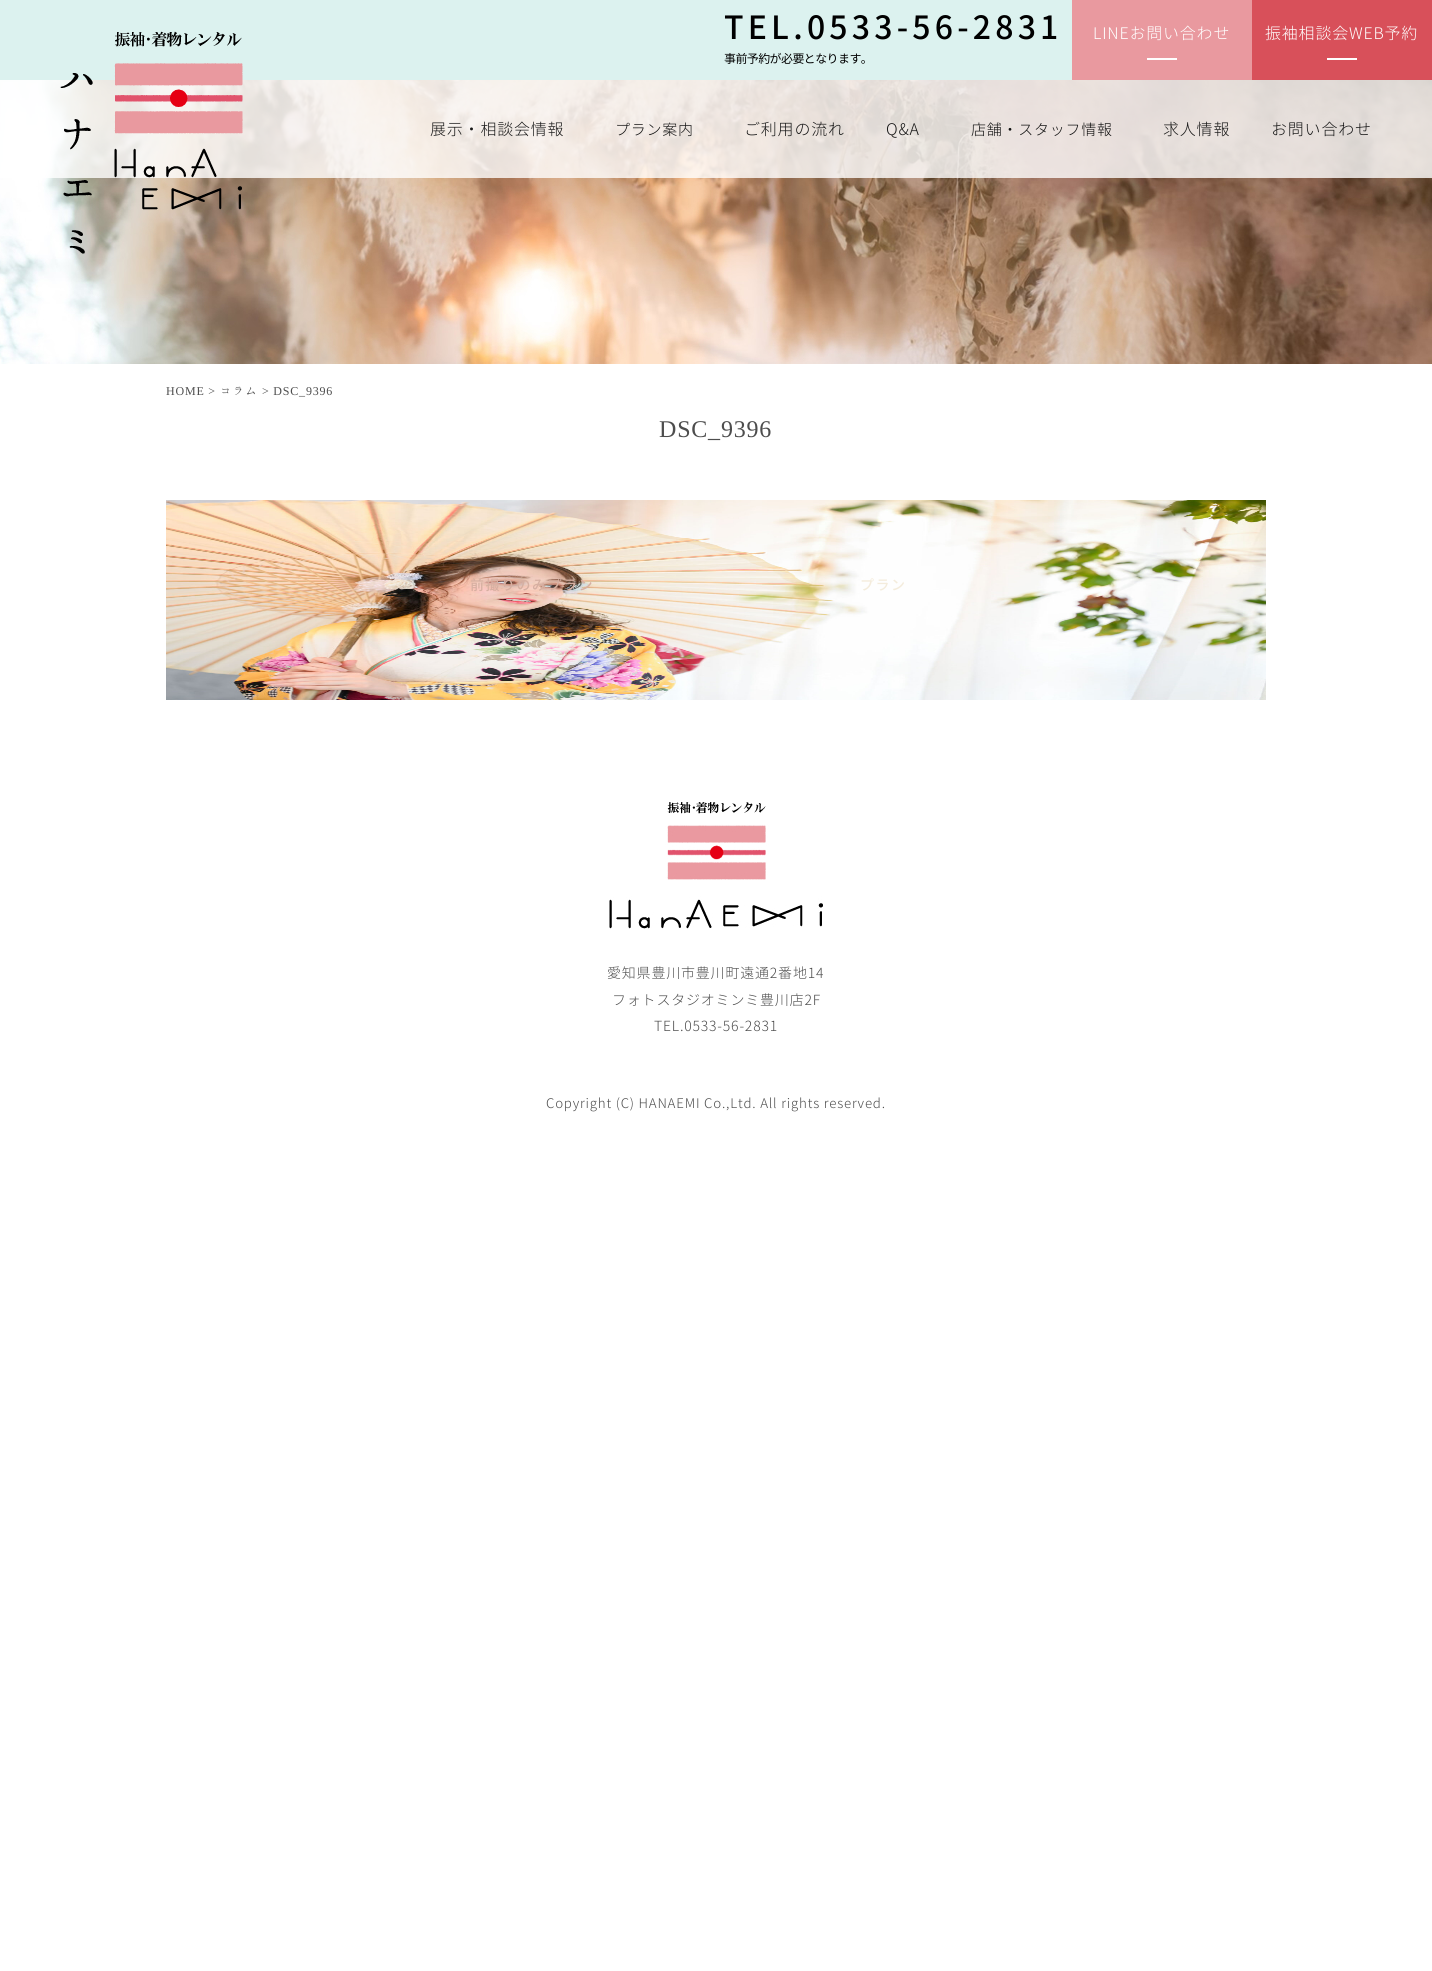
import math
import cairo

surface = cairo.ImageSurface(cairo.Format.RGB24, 1432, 1971)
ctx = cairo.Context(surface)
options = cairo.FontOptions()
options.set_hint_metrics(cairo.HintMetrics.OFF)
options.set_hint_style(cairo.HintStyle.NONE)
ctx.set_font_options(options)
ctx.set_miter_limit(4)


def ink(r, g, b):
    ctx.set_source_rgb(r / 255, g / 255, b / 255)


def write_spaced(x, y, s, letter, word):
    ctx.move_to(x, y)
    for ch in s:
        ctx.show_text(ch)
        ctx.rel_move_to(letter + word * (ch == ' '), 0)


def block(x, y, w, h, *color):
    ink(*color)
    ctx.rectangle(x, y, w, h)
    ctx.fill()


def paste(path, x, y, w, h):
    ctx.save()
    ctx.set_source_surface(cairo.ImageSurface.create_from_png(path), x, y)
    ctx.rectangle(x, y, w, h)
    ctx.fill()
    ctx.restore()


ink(255, 255, 255)
ctx.paint()
block(0, 0, 1072, 80, 220, 242, 239)
paste("pic2.png", 0, 80, 1432, 284)
ctx.set_source_rgba(1, 1, 1, 0.8)
ctx.rectangle(0, 80, 1432, 98)
ctx.fill()
paste("pic1.png", 60, 31, 183, 223)
ctx.select_font_face("Noto Sans JP Medium")
ctx.set_font_size(32)
ink(0, 0, 0)
write_spaced(724, 39, "TEL.0533-56-2831", 4.2, 0)
ctx.select_font_face("Noto Sans JP")
ctx.set_font_size(12)
write_spaced(724, 63, "事前予約が必要となります。", -0.6, 0)
block(1072, 0, 180, 80, 233, 153, 159)
ctx.select_font_face("Noto Sans JP Light")
ctx.set_font_size(16)
ink(255, 255, 255)
write_spaced(1093, 39, "LINEお問い合わせ", 0.8, 0)
block(1147, 58, 30, 2, 255, 255, 255)
block(1252, 0, 180, 80, 216, 80, 90)
ink(255, 255, 255)
write_spaced(1265, 39, "振袖相談会WEB予約", 0.8, 0)
block(1327, 58, 30, 2, 255, 255, 255)
ink(24, 24, 24)
write_spaced(430, 135, "展示・相談会情報", 0.8, 0)
write_spaced(744, 135, "ご利用の流れ", 0.8, 0)
write_spaced(1163, 135, "求人情報", 0.8, 0)
write_spaced(1271, 135, "お問い合わせ", 0.8, 0)
ctx.set_font_size(15)
ink(17, 17, 17)
write_spaced(615, 135, "プラン案内", 0.75, 0)
paste("pic3.png", 166, 500, 1100, 200)
ctx.select_font_face("Noto Sans JP Medium")
ctx.set_font_size(14)
ink(214, 175, 161)
write_spaced(470, 590, "前撮りのみプラン", 1.5, 0)
ink(244, 236, 220)
write_spaced(860, 590, "プラン", 1.5, 0)
ctx.select_font_face("Noto Sans JP Light")
ctx.set_font_size(15)
ink(17, 17, 17)
write_spaced(971, 135, "店舗・スタッフ情報", 0.75, 0)
ctx.set_font_size(16)
ink(24, 24, 24)
write_spaced(886, 135, "Q&A", 0.8, 0)
ctx.select_font_face("Liberation Serif")
ctx.set_font_size(12)
ink(77, 77, 77)
write_spaced(166, 395, "HOME >", 0.8, 0)
ctx.select_font_face("Hannari")
write_spaced(220, 395, "コラム", 0.8, 0)
ctx.select_font_face("Liberation Serif")
write_spaced(262, 395, "> DSC_9396", 0.8, 0)
ctx.set_font_size(24)
write_spaced(659, 437, "DSC_9396", 0.8, 0)
paste("pic4.png", 609, 802, 214, 127)
ctx.select_font_face("Noto Sans JP Light")
ctx.set_font_size(14)
write_spaced(607, 978, "愛知県豊川市豊川町遠通2番地14", 0.8, 0)
write_spaced(612, 1005, "フォトスタジオミンミ豊川店2F", 0.8, 0)
write_spaced(654, 1031, "TEL.0533-56-2831", 0.8, 0)
ctx.set_font_size(13.3)
write_spaced(546, 1108, "Copyright (C) HANAEMI Co.,Ltd. All rights reserved.", 0.8, 0)
surface.write_to_png("screenshot.png")
